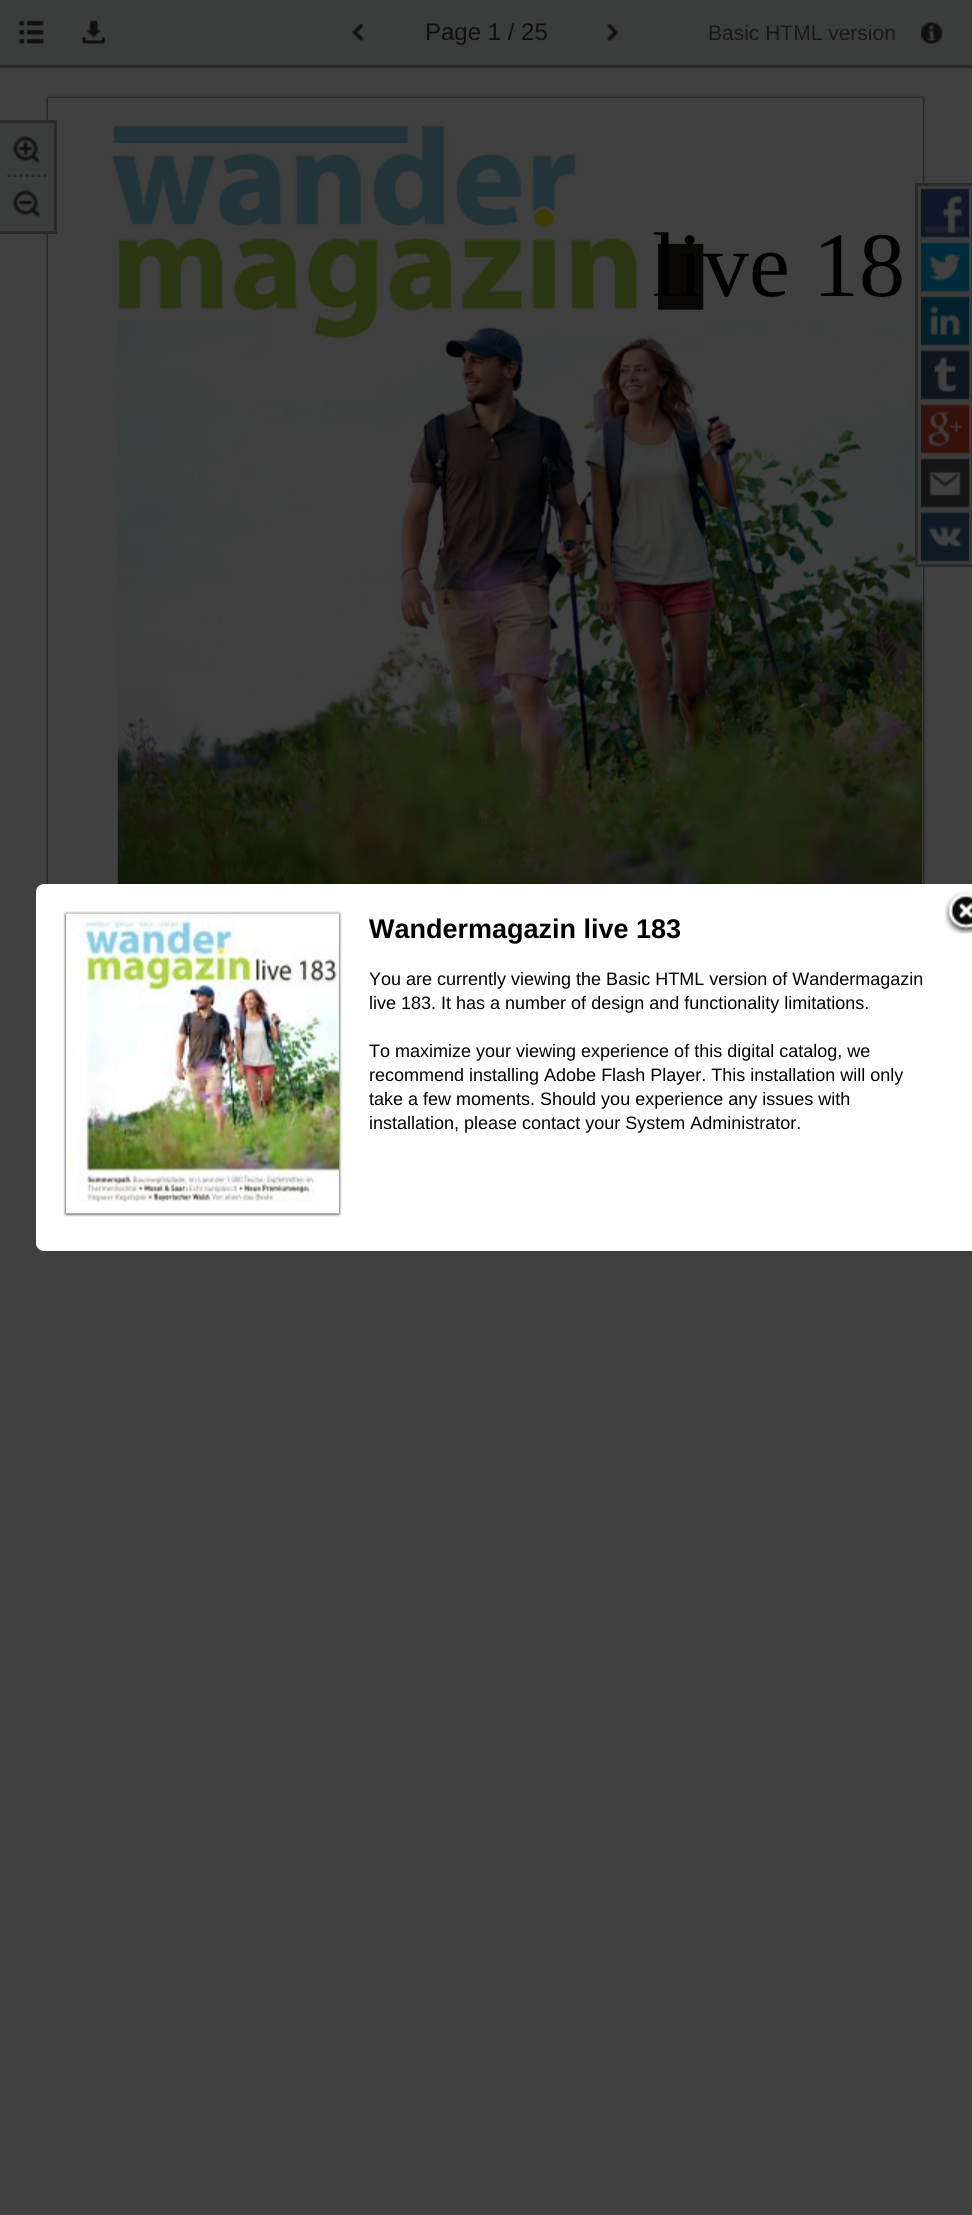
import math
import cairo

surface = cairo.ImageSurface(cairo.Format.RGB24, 972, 2215)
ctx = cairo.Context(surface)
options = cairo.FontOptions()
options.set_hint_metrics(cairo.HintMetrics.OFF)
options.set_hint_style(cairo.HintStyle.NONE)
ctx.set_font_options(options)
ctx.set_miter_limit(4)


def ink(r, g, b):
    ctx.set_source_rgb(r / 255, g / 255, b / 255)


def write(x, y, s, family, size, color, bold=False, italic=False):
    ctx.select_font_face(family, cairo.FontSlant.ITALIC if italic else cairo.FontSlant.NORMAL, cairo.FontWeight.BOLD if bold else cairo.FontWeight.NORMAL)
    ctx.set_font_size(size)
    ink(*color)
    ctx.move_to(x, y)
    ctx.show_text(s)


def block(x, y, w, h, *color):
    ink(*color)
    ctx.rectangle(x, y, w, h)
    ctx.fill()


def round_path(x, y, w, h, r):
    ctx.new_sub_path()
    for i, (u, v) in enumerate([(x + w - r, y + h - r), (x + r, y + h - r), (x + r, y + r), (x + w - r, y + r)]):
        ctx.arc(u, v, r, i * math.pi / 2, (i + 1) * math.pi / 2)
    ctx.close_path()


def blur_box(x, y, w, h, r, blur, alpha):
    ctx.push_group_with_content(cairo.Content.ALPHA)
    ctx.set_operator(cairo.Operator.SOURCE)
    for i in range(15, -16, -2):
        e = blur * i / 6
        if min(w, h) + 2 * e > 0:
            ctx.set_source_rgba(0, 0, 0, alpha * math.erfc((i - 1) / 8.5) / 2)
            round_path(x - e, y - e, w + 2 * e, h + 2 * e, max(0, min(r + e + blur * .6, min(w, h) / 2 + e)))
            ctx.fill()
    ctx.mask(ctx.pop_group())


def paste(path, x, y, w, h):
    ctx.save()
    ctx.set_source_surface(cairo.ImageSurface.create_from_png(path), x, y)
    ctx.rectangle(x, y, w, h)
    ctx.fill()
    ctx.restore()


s1 = dict(family="Liberation Sans", size=24, color=(16, 16, 17))
s2 = dict(family="Liberation Sans", size=21, color=(25, 25, 25))
s3 = dict(family="Liberation Serif", size=92, color=(0, 0, 0))
s4 = dict(family="Liberation Sans", size=27, color=(0, 0, 0), bold=True)
s5 = dict(family="Liberation Sans", size=18, color=(0, 0, 0))

ink(64, 64, 64)
ctx.paint()
block(0, 0, 972, 65, 59, 60, 60)
block(0, 65, 972, 3, 42, 43, 43)
paste("pic1.png", 19, 20, 25, 24)
paste("pic2.png", 82, 19, 24, 25)
paste("pic3.png", 352, 23, 12, 18)
write(425, 40, "Page 1 / 25", **s1)
paste("pic4.png", 607, 23, 12, 18)
write(708, 40, "Basic HTML version", **s2)
paste("pic5.png", 921, 22, 21, 22)
ink(0, 0, 0)
blur_box(48, 98, 875, 957, 0, 1.5, 1)
block(922, 98, 1, 786, 64, 64, 64)
paste("pic15.png", 48, 97, 875, 787)
block(0, 120, 57, 114, 59, 60, 60)
ink(42, 43, 43)
ctx.new_path()
ctx.move_to(0, 120)
ctx.line_to(57, 120)
ctx.line_to(54, 123)
ctx.line_to(0, 123)
ctx.close_path()
ctx.fill()
ctx.set_source_rgba(0.063, 0.063, 0.067, 0.4)
ctx.new_path()
ctx.move_to(57, 120)
ctx.line_to(57, 234)
ctx.line_to(54, 231)
ctx.line_to(54, 123)
ctx.close_path()
ctx.fill()
ctx.new_path()
ctx.move_to(57, 234)
ctx.line_to(0, 234)
ctx.line_to(0, 231)
ctx.line_to(54, 231)
ctx.close_path()
ctx.fill()
paste("pic6.png", 12, 136, 29, 28)
ctx.new_path()
ctx.move_to(7.5, 175.5)
ctx.line_to(46.5, 175.5)
ink(42, 43, 43)
ctx.set_line_width(3)
ctx.set_dash([3, 3])
ctx.stroke()
paste("pic7.png", 12, 190, 29, 28)
block(915, 183, 57, 384, 59, 60, 60)
ink(42, 43, 43)
ctx.new_path()
ctx.move_to(915, 183)
ctx.line_to(972, 183)
ctx.line_to(972, 186)
ctx.line_to(918, 186)
ctx.close_path()
ctx.fill()
ctx.new_path()
ctx.move_to(972, 567)
ctx.line_to(915, 567)
ctx.line_to(918, 564)
ctx.line_to(972, 564)
ctx.close_path()
ctx.fill()
ctx.set_source_rgba(0.063, 0.063, 0.067, 0.4)
ctx.new_path()
ctx.move_to(915, 567)
ctx.line_to(915, 183)
ctx.line_to(918, 186)
ctx.line_to(918, 564)
ctx.close_path()
ctx.fill()
paste("pic8.png", 921, 188, 48, 50)
paste("pic9.png", 921, 242, 48, 50)
paste("pic10.png", 921, 296, 48, 50)
paste("pic11.png", 921, 350, 48, 50)
paste("pic12.png", 921, 404, 48, 50)
paste("pic13.png", 921, 458, 48, 50)
paste("pic14.png", 921, 512, 48, 50)
write(652, 296, "live 18", **s3)
ink(255, 255, 255)
round_path(36, 884, 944, 367, 8)
ctx.fill()
paste("pic16.png", 944, 891, 28, 43)
ink(0, 0, 0)
blur_box(66, 914, 273, 300, 0, 1.5, 1)
paste("pic17.png", 66, 913, 273, 301)
write(369, 938, "Wandermagazin live 183", **s4)
write(369, 985, "You are currently viewing the Basic HTML version of Wandermagazin", **s5)
write(369, 1009, "live 183. It has a number of design and functionality limitations.", **s5)
write(369, 1057, "To maximize your viewing experience of this digital catalog, we", **s5)
write(369, 1081, "recommend installing Adobe Flash Player. This installation will only", **s5)
write(369, 1105, "take a few moments. Should you experience any issues with", **s5)
write(369, 1129, "installation, please contact your System Administrator.", **s5)
surface.write_to_png("screenshot.png")
